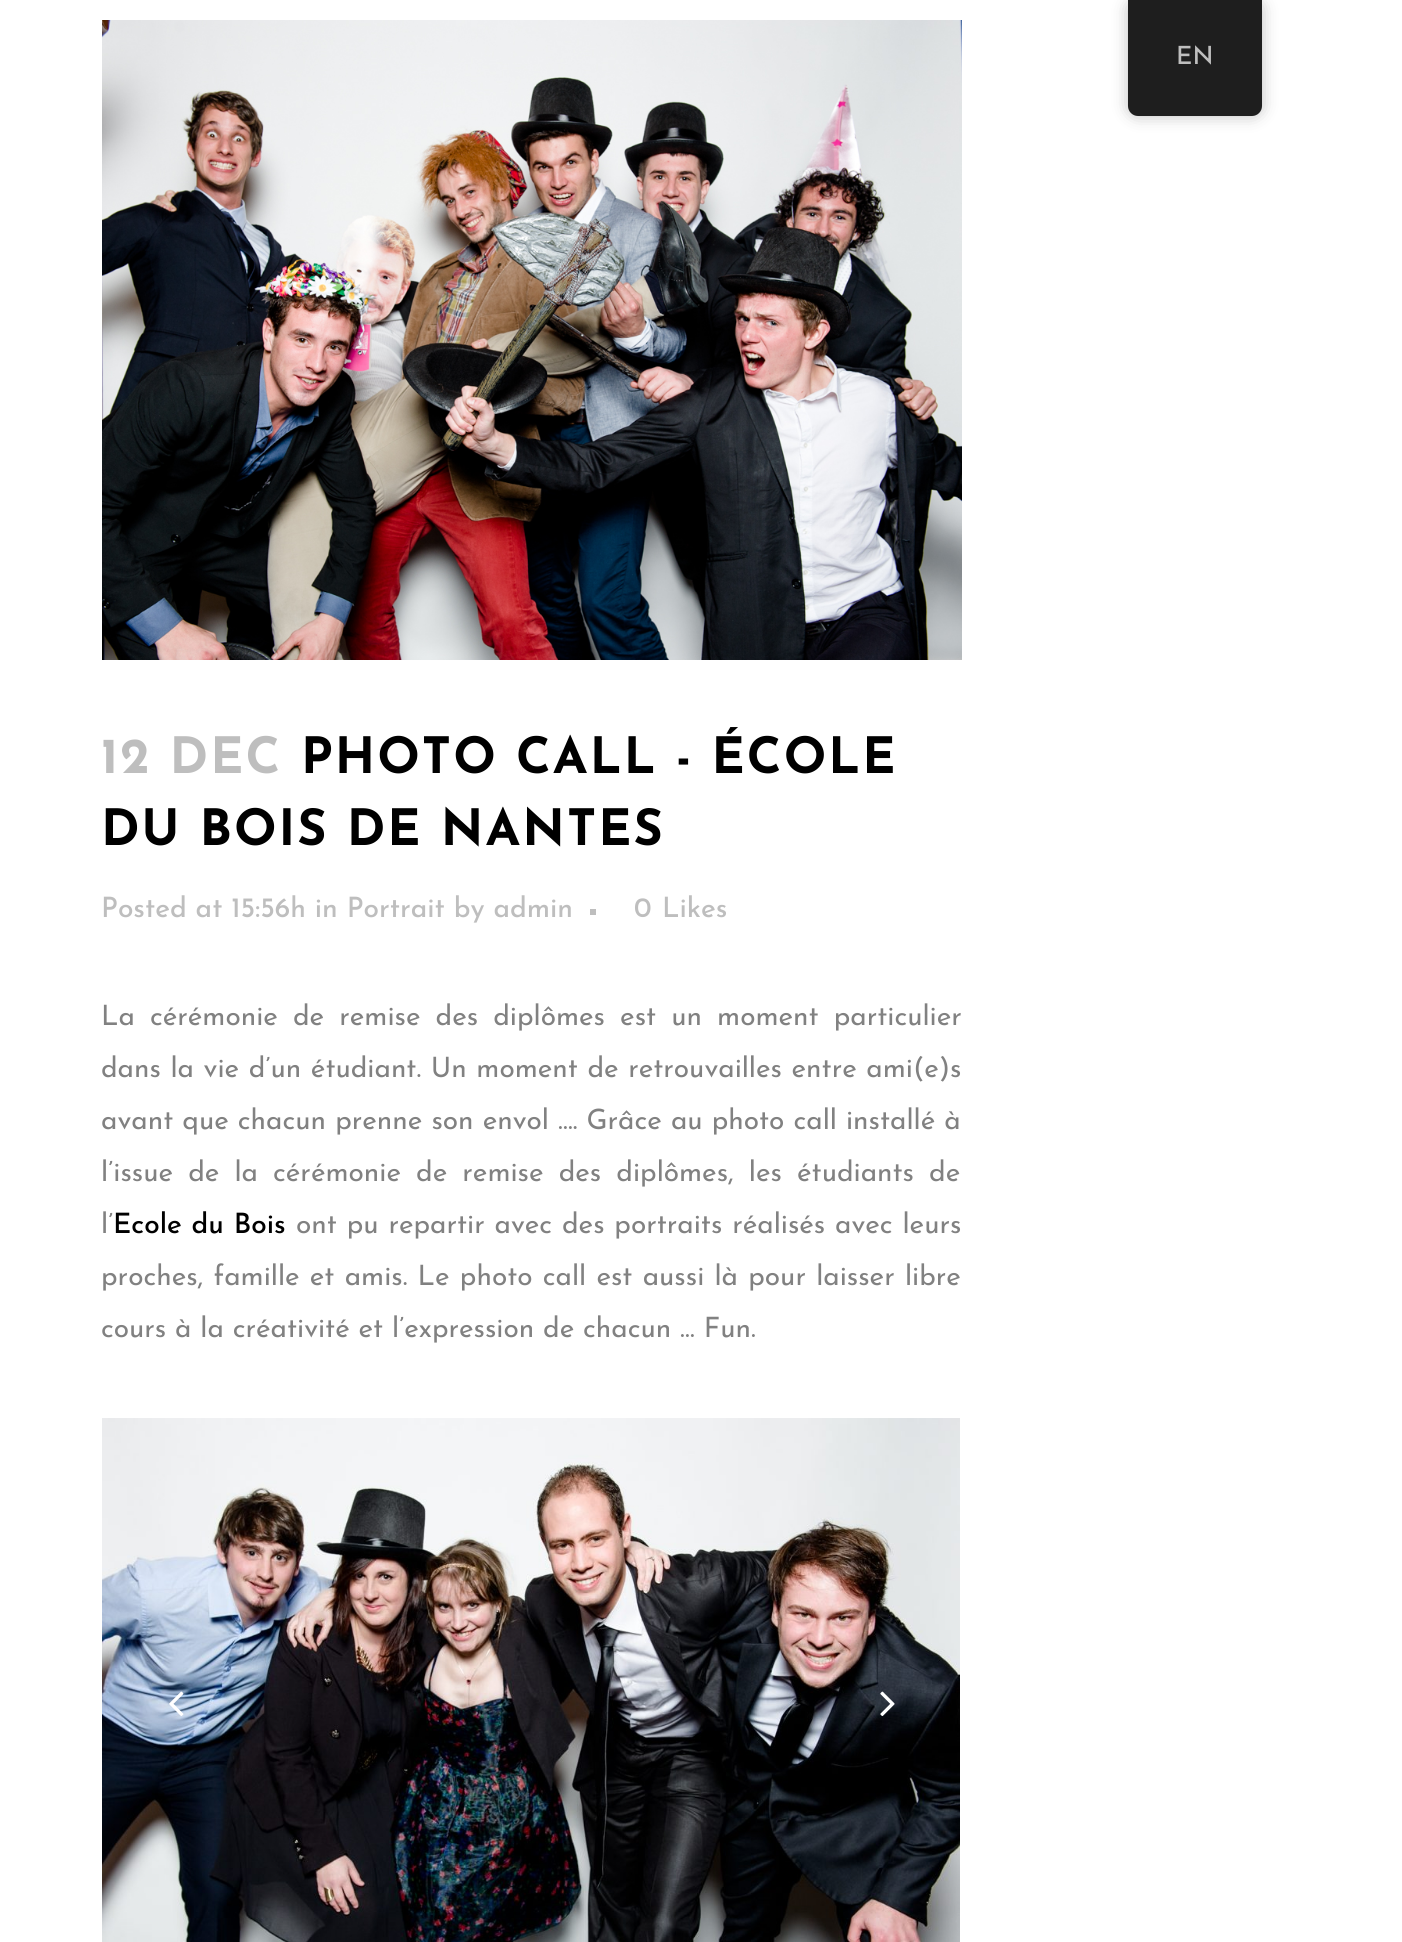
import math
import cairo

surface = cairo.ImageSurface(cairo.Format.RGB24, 1402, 1942)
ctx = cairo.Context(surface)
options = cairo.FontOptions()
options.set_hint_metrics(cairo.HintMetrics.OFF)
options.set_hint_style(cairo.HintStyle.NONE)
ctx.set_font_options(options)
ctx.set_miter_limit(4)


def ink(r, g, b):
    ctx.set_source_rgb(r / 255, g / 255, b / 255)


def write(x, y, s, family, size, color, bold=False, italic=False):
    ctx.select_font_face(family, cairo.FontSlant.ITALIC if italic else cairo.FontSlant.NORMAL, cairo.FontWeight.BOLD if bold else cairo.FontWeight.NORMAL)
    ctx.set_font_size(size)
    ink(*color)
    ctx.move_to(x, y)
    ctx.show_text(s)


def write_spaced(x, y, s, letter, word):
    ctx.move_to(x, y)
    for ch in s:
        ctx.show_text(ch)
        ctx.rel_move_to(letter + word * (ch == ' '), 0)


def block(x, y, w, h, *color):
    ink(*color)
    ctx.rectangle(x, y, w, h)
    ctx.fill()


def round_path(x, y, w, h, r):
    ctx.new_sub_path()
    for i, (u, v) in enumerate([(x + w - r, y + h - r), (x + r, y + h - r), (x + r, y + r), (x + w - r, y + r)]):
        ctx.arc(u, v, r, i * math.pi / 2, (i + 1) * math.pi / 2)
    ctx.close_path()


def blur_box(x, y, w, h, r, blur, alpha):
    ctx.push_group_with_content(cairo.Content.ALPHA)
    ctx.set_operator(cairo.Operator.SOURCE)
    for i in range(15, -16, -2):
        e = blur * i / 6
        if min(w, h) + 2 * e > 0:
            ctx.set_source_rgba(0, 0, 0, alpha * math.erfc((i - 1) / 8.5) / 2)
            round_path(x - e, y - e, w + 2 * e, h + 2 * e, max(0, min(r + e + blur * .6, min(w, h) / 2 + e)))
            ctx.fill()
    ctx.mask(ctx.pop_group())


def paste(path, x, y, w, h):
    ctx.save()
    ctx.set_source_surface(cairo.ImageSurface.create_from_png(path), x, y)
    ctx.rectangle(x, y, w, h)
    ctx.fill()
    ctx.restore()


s1 = dict(family="Josefin Sans Medium", size=25, color=(190, 190, 190))
s2 = dict(family="Josefin Sans Medium", size=28, color=(190, 190, 190))
s3 = dict(family="Josefin Sans", size=28, color=(129, 129, 129))

ink(255, 255, 255)
ctx.paint()
ink(0, 0, 0)
blur_box(1128, 0, 134, 116, 10, 8, 0.25)
ink(30, 30, 30)
ctx.new_path()
ctx.move_to(1128, 0)
ctx.line_to(1262, 0)
ctx.line_to(1262, 106)
ctx.curve_to(1262, 111.5, 1257.5, 116, 1252, 116)
ctx.line_to(1138, 116)
ctx.curve_to(1132.5, 116, 1128, 111.5, 1128, 106)
ctx.close_path()
ctx.fill()
write(1176, 64, "EN", **s1)
paste("pic1.png", 102, 20, 860, 640)
ctx.select_font_face("Josefin Sans", cairo.FontSlant.NORMAL, cairo.FontWeight.BOLD)
ctx.set_font_size(50)
write_spaced(101, 773, "12 DEC", 2, 0)
ink(0, 0, 0)
write_spaced(301, 773, "PHOTO CALL - ÉCOLE", 2, 0)
write_spaced(101, 845, "DU BOIS DE NANTES", 2, 0)
write(101, 917, "Posted at 15:56h in Portrait by admin", **s2)
block(590, 909, 6, 6, 190, 190, 190)
write(634, 917, "0", **s2)
write(662, 917, "Likes", **s2)
ctx.select_font_face("Josefin Sans")
ink(129, 129, 129)
write_spaced(101, 1025, "La cérémonie de remise des diplômes est un moment particulier", 0, 6.25)
write_spaced(101, 1077, "dans la vie d’un étudiant. Un moment de retrouvailles entre ami(e)s", 0, 0.75)
write_spaced(101, 1129, "avant que chacun prenne son envol …. Grâce au photo call installé à", 0, 0.25)
write_spaced(101, 1181, "l’issue de la cérémonie de remise des diplômes, les étudiants de", 0, 6.25)
write(101, 1233, "l’", **s3)
ctx.select_font_face("Josefin Sans Medium")
ink(0, 0, 0)
write_spaced(113, 1233, "Ecole du Bois", 0, 1)
ctx.select_font_face("Josefin Sans")
ink(129, 129, 129)
write_spaced(296, 1233, "ont pu repartir avec des portraits réalisés avec leurs", 0, 1)
write_spaced(101, 1285, "proches, famille et amis. Le photo call est aussi là pour laisser libre", 0, 1.4)
write(101, 1337, "cours à la créativité et l’expression de chacun … Fun.", **s3)
paste("pic2.png", 102, 1418, 858, 524)
paste("pic3.png", 169, 1691, 15, 25)
paste("pic4.png", 880, 1691, 15, 26)
surface.write_to_png("screenshot.png")
